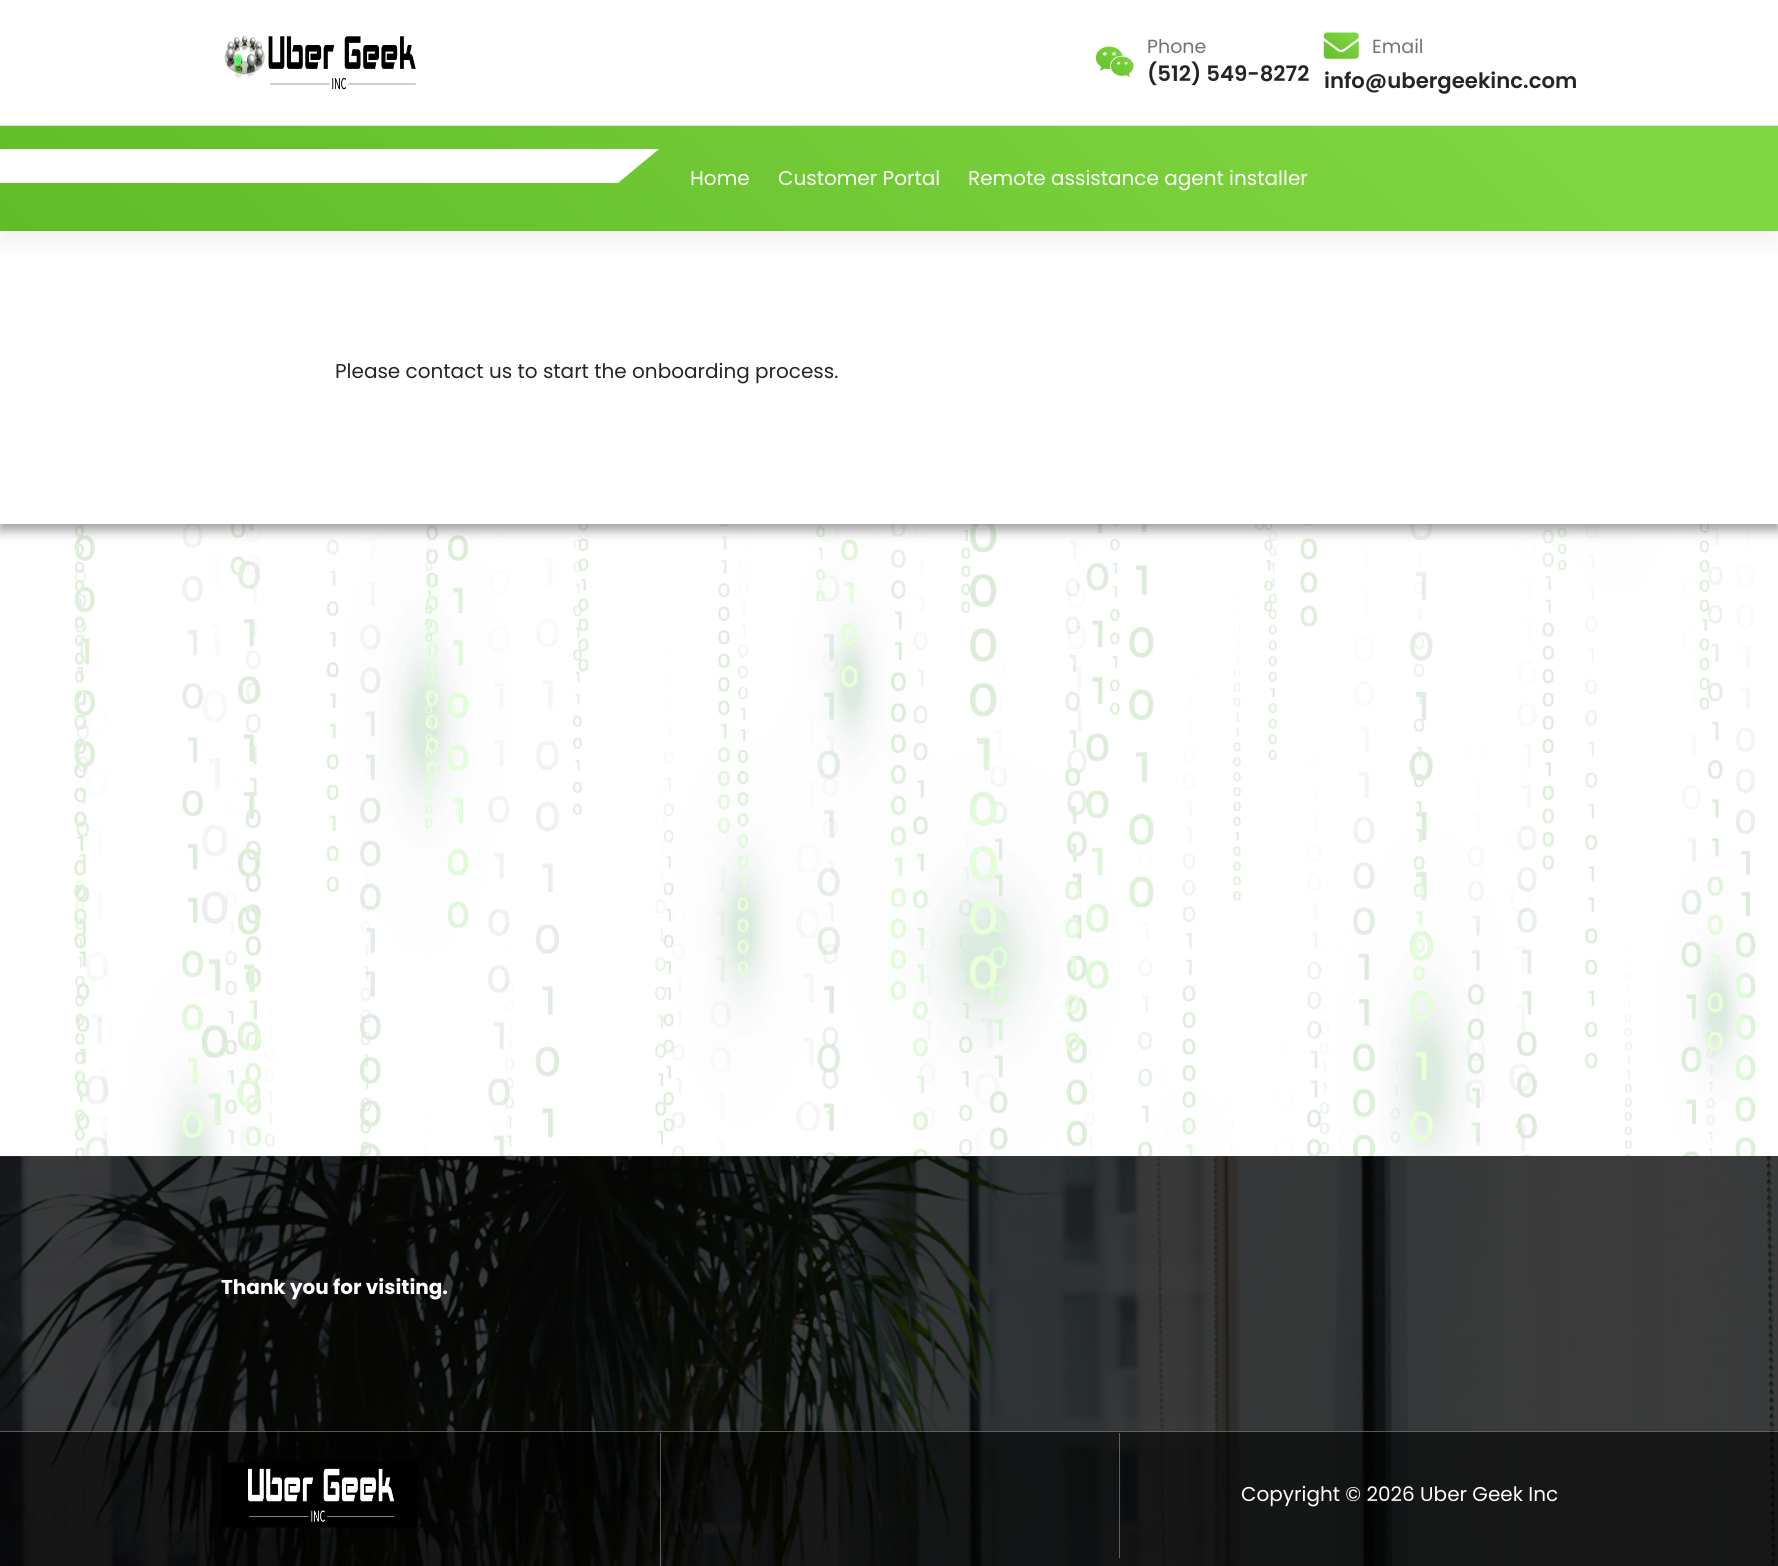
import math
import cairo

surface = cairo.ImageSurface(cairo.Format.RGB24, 1778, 1566)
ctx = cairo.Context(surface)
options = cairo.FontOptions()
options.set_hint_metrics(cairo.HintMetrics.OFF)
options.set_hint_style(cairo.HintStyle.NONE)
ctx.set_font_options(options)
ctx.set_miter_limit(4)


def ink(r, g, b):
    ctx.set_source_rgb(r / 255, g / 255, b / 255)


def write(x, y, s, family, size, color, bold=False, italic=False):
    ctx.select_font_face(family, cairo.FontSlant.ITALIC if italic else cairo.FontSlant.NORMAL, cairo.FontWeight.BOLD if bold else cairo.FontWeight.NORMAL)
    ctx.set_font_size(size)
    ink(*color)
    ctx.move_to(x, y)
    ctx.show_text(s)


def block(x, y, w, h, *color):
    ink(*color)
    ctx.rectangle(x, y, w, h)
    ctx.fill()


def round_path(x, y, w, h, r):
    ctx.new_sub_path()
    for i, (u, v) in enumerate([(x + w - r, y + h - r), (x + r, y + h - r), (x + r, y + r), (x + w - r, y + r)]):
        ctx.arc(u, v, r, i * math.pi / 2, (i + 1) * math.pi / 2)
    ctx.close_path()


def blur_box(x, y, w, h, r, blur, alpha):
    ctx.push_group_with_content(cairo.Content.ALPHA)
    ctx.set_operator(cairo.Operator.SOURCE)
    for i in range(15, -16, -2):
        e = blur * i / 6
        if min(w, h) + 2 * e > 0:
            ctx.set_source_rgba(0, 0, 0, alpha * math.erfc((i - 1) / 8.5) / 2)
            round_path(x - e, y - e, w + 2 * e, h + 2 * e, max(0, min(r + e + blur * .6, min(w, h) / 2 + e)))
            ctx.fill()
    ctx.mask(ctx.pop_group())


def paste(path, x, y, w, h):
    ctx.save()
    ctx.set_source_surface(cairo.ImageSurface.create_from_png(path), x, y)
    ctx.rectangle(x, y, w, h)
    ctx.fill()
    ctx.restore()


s1 = dict(family="Poppins", size=19, color=(115, 115, 115))
s2 = dict(family="Poppins SemiBold", size=21.25, color=(37, 37, 37))
s3 = dict(family="Poppins", size=20, color=(255, 255, 255))
s4 = dict(family="Poppins", size=20, color=(37, 37, 37))
s5 = dict(family="Poppins", size=20, color=(255, 255, 255), bold=True)

ink(255, 255, 255)
ctx.paint()
paste("pic1.png", 74, 524, 1682, 633)
block(0, 125, 1778, 1, 225, 225, 225)
paste("pic2.png", 224, 35, 192, 55)
paste("pic3.png", 1095, 46, 39, 32)
write(1147, 53, "Phone", **s1)
write(1147, 81, "(512) 549-8272", **s2)
paste("pic4.png", 1323, 32, 36, 27)
write(1372, 53, "Email", **s1)
write(1324, 88, "info@ubergeekinc.com", **s2)
ink(51, 51, 51)
blur_box(0, 238, 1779, 292, 0, 6, 0.5)
block(0, 231, 1778, 293, 255, 255, 255)
ink(0, 0, 0)
blur_box(0, 139, 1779, 105, 0, 9.5, 0.05)
gradient = cairo.LinearGradient(1329, -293, 450, 650)
gradient.add_color_stop_rgba(0.1, 0.506, 0.843, 0.259, 1)
gradient.add_color_stop_rgba(1, 0.376, 0.737, 0.153, 1)
ctx.set_source(gradient)
ctx.rectangle(0, 126, 1778, 105)
ctx.fill()
ink(255, 255, 255)
ctx.new_path()
ctx.move_to(-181, 149)
ctx.line_to(659, 149)
ctx.line_to(618, 183)
ctx.line_to(-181, 183)
ctx.close_path()
ctx.fill()
write(690, 185, "Home", **s3)
write(778, 185, "Customer Portal", **s3)
write(968, 185, "Remote assistance agent installer", **s3)
write(335, 378, "Please contact us to start the onboarding process.", **s4)
paste("pic5.png", 0, 1156, 1778, 410)
ctx.set_source_rgba(0, 0, 0, 0.75)
ctx.rectangle(0, 1156, 1778, 410)
ctx.fill()
write(221, 1294, "Thank you for visiting.", **s5)
ctx.set_source_rgba(0, 0, 0, 0.6)
ctx.rectangle(0, 1431, 1778, 135)
ctx.fill()
ctx.set_source_rgba(0.741, 0.741, 0.741, 0.45)
ctx.rectangle(0, 1431, 1778, 1)
ctx.fill()
paste("pic6.png", 222, 1462, 196, 66)
ctx.rectangle(660, 1433, 1, 133)
ctx.fill()
ctx.rectangle(1119, 1433, 1, 125)
ctx.fill()
write(1241, 1501, "Copyright © 2026 Uber Geek Inc", **s3)
surface.write_to_png("screenshot.png")
